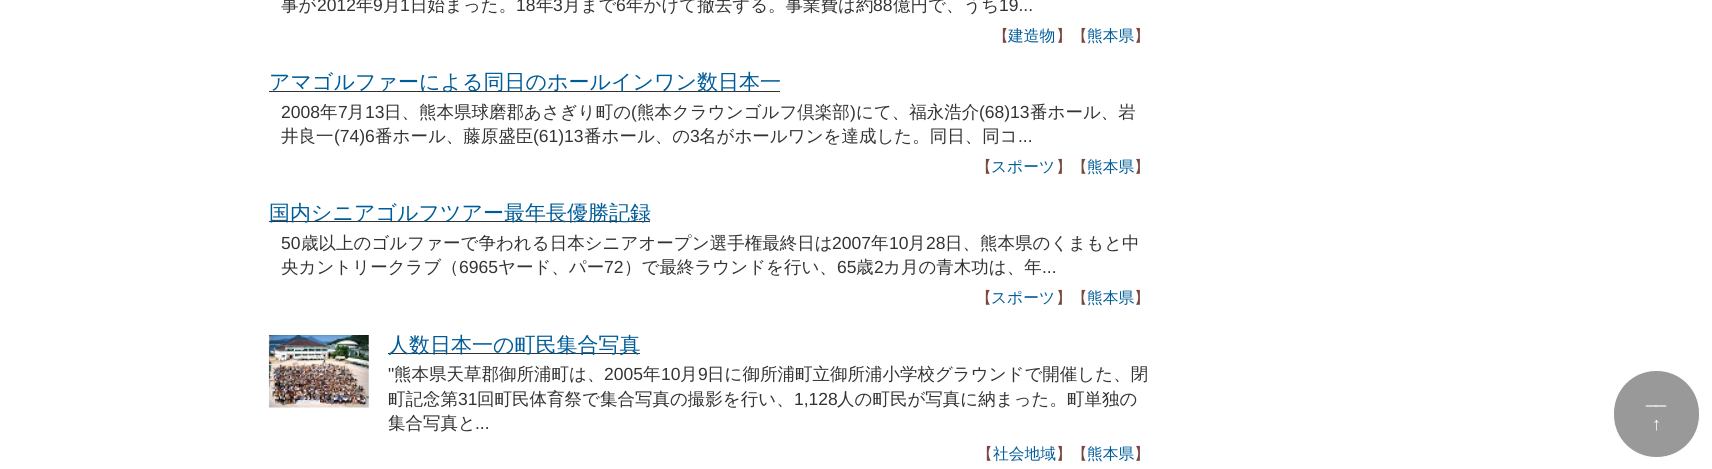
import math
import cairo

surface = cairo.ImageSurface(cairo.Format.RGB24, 1712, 469)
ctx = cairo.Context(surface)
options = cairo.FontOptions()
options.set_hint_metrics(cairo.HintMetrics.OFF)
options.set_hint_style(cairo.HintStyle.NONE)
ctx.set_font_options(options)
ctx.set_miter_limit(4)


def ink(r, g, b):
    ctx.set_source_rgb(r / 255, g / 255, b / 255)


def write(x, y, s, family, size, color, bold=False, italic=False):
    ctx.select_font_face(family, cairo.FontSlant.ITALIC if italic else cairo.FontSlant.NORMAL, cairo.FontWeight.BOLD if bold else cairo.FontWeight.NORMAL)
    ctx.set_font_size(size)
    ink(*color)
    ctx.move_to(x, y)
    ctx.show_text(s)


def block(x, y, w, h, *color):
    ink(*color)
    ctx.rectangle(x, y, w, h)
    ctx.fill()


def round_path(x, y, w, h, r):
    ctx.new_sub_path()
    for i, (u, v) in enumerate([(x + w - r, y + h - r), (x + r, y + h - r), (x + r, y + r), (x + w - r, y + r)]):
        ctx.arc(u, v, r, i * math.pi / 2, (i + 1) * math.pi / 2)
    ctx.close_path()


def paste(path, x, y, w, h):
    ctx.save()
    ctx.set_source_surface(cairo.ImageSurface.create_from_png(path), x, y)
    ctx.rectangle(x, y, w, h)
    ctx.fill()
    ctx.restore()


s1 = dict(family="WenQuanYi Zen Hei Medium", size=17.5, color=(51, 51, 51))
s2 = dict(family="Liberation Sans", size=17.5, color=(51, 51, 51))
s3 = dict(family="WenQuanYi Zen Hei Medium", size=15.75, color=(122, 70, 61))
s4 = dict(family="WenQuanYi Zen Hei Medium", size=15.75, color=(0, 92, 152))
s5 = dict(family="WenQuanYi Zen Hei Medium", size=21, color=(0, 92, 152))
s6 = dict(family="Liberation Sans", size=18, color=(255, 255, 255))

ink(255, 255, 255)
ctx.paint()
write(281, 11, "事が", **s1)
write(317, 11, "2012", **s2)
write(356, 11, "年", **s1)
write(373, 11, "9", **s2)
write(383, 11, "月", **s1)
write(400, 11, "1", **s2)
write(410, 11, "日始まった。", **s1)
write(516, 11, "18", **s2)
write(536, 11, "年", **s1)
write(553, 11, "3", **s2)
write(563, 11, "月まで", **s1)
write(616, 11, "6", **s2)
write(626, 11, "年かけて撤去する。事業費は約", **s1)
write(873, 11, "88", **s2)
write(893, 11, "億円で、うち", **s1)
write(999, 11, "19...", **s2)
write(993, 41, "【", **s3)
write(1008, 41, "建造物", **s4)
write(1056, 41, "】【", **s3)
write(1087, 41, "熊本県", **s4)
write(1134, 41, "】", **s3)
block(269, 91, 511, 1, 51, 51, 51)
write(269, 89, "アマゴルファーによる同日のホールインワン数日本一", **s5)
write(281, 118, "2008", **s2)
write(320, 118, "年", **s1)
write(338, 118, "7", **s2)
write(347, 118, "月", **s1)
write(365, 118, "13", **s2)
write(384, 118, "日、熊本県球磨郡あさぎり町の", **s1)
write(631, 118, "(", **s2)
write(637, 118, "熊本クラウンゴルフ倶楽部", **s1)
write(850, 118, ")", **s2)
write(856, 118, "にて、福永浩介", **s1)
write(979, 118, "(68)13", **s2)
write(1030, 118, "番ホール、岩", **s1)
write(281, 142, "井良一", **s1)
write(334, 142, "(74)6", **s2)
write(375, 142, "番ホール、藤原盛臣", **s1)
write(533, 142, "(61)13", **s2)
write(584, 142, "番ホール、の", **s1)
write(690, 142, "3", **s2)
write(699, 142, "名がホールワンを達成した。同日、同コ", **s1)
write(1018, 142, "...", **s2)
write(976, 172, "【", **s3)
write(991, 172, "スポーツ", **s4)
write(1056, 172, "】【", **s3)
write(1087, 172, "熊本県", **s4)
write(1134, 172, "】", **s3)
block(269, 221, 381, 1, 51, 51, 51)
write(269, 220, "国内シニアゴルフツアー最年長優勝記録", **s5)
write(281, 249, "50", **s2)
write(301, 249, "歳以上のゴルファーで争われる日本シニアオープン選手権最終日は", **s1)
write(832, 249, "2007", **s2)
write(871, 249, "年", **s1)
write(889, 249, "10", **s2)
write(908, 249, "月", **s1)
write(926, 249, "28", **s2)
write(945, 249, "日、熊本県のくまもと中", **s1)
write(281, 273, "央カントリークラブ（", **s1)
write(459, 273, "6965", **s2)
write(498, 273, "ヤード、パー", **s1)
write(604, 273, "72", **s2)
write(624, 273, "）で最終ラウンドを行い、", **s1)
write(837, 273, "65", **s2)
write(856, 273, "歳", **s1)
write(874, 273, "2", **s2)
write(883, 273, "カ月の青木功は、年", **s1)
write(1042, 273, "...", **s2)
write(976, 303, "【", **s3)
write(991, 303, "スポーツ", **s4)
write(1056, 303, "】【", **s3)
write(1087, 303, "熊本県", **s4)
write(1134, 303, "】", **s3)
paste("pic1.png", 268, 335, 101, 73)
block(388, 353, 252, 1, 51, 51, 51)
write(388, 352, "人数日本一の町民集合写真", **s5)
write(388, 380, "\"", **s2)
write(394, 380, "熊本県天草郡御所浦町は、", **s1)
write(604, 380, "2005", **s2)
write(643, 380, "年", **s1)
write(661, 380, "10", **s2)
write(680, 380, "月", **s1)
write(698, 380, "9", **s2)
write(707, 380, "日に御所浦町立御所浦小学校グラウンドで開催した、閉", **s1)
write(388, 405, "町記念第", **s1)
write(458, 405, "31", **s2)
write(477, 405, "回町民体育祭で集合写真の撮影を行い、", **s1)
write(794, 405, "1,128", **s2)
write(837, 405, "人の町民が写真に納まった。町単独の", **s1)
write(388, 429, "集合写真と", **s1)
write(475, 429, "...", **s2)
write(977, 459, "【", **s3)
write(993, 459, "社会地域", **s4)
write(1056, 459, "】【", **s3)
write(1087, 459, "熊本県", **s4)
write(1134, 459, "】", **s3)
ink(153, 153, 153)
round_path(1613.5, 370.5, 86, 87, 42.5)
ctx.fill_preserve()
ink(255, 255, 255)
ctx.set_line_width(1)
ctx.stroke()
write(1646, 403, "__", **s6)
write(1652, 430, "↑", **s6)
surface.write_to_png("screenshot.png")
